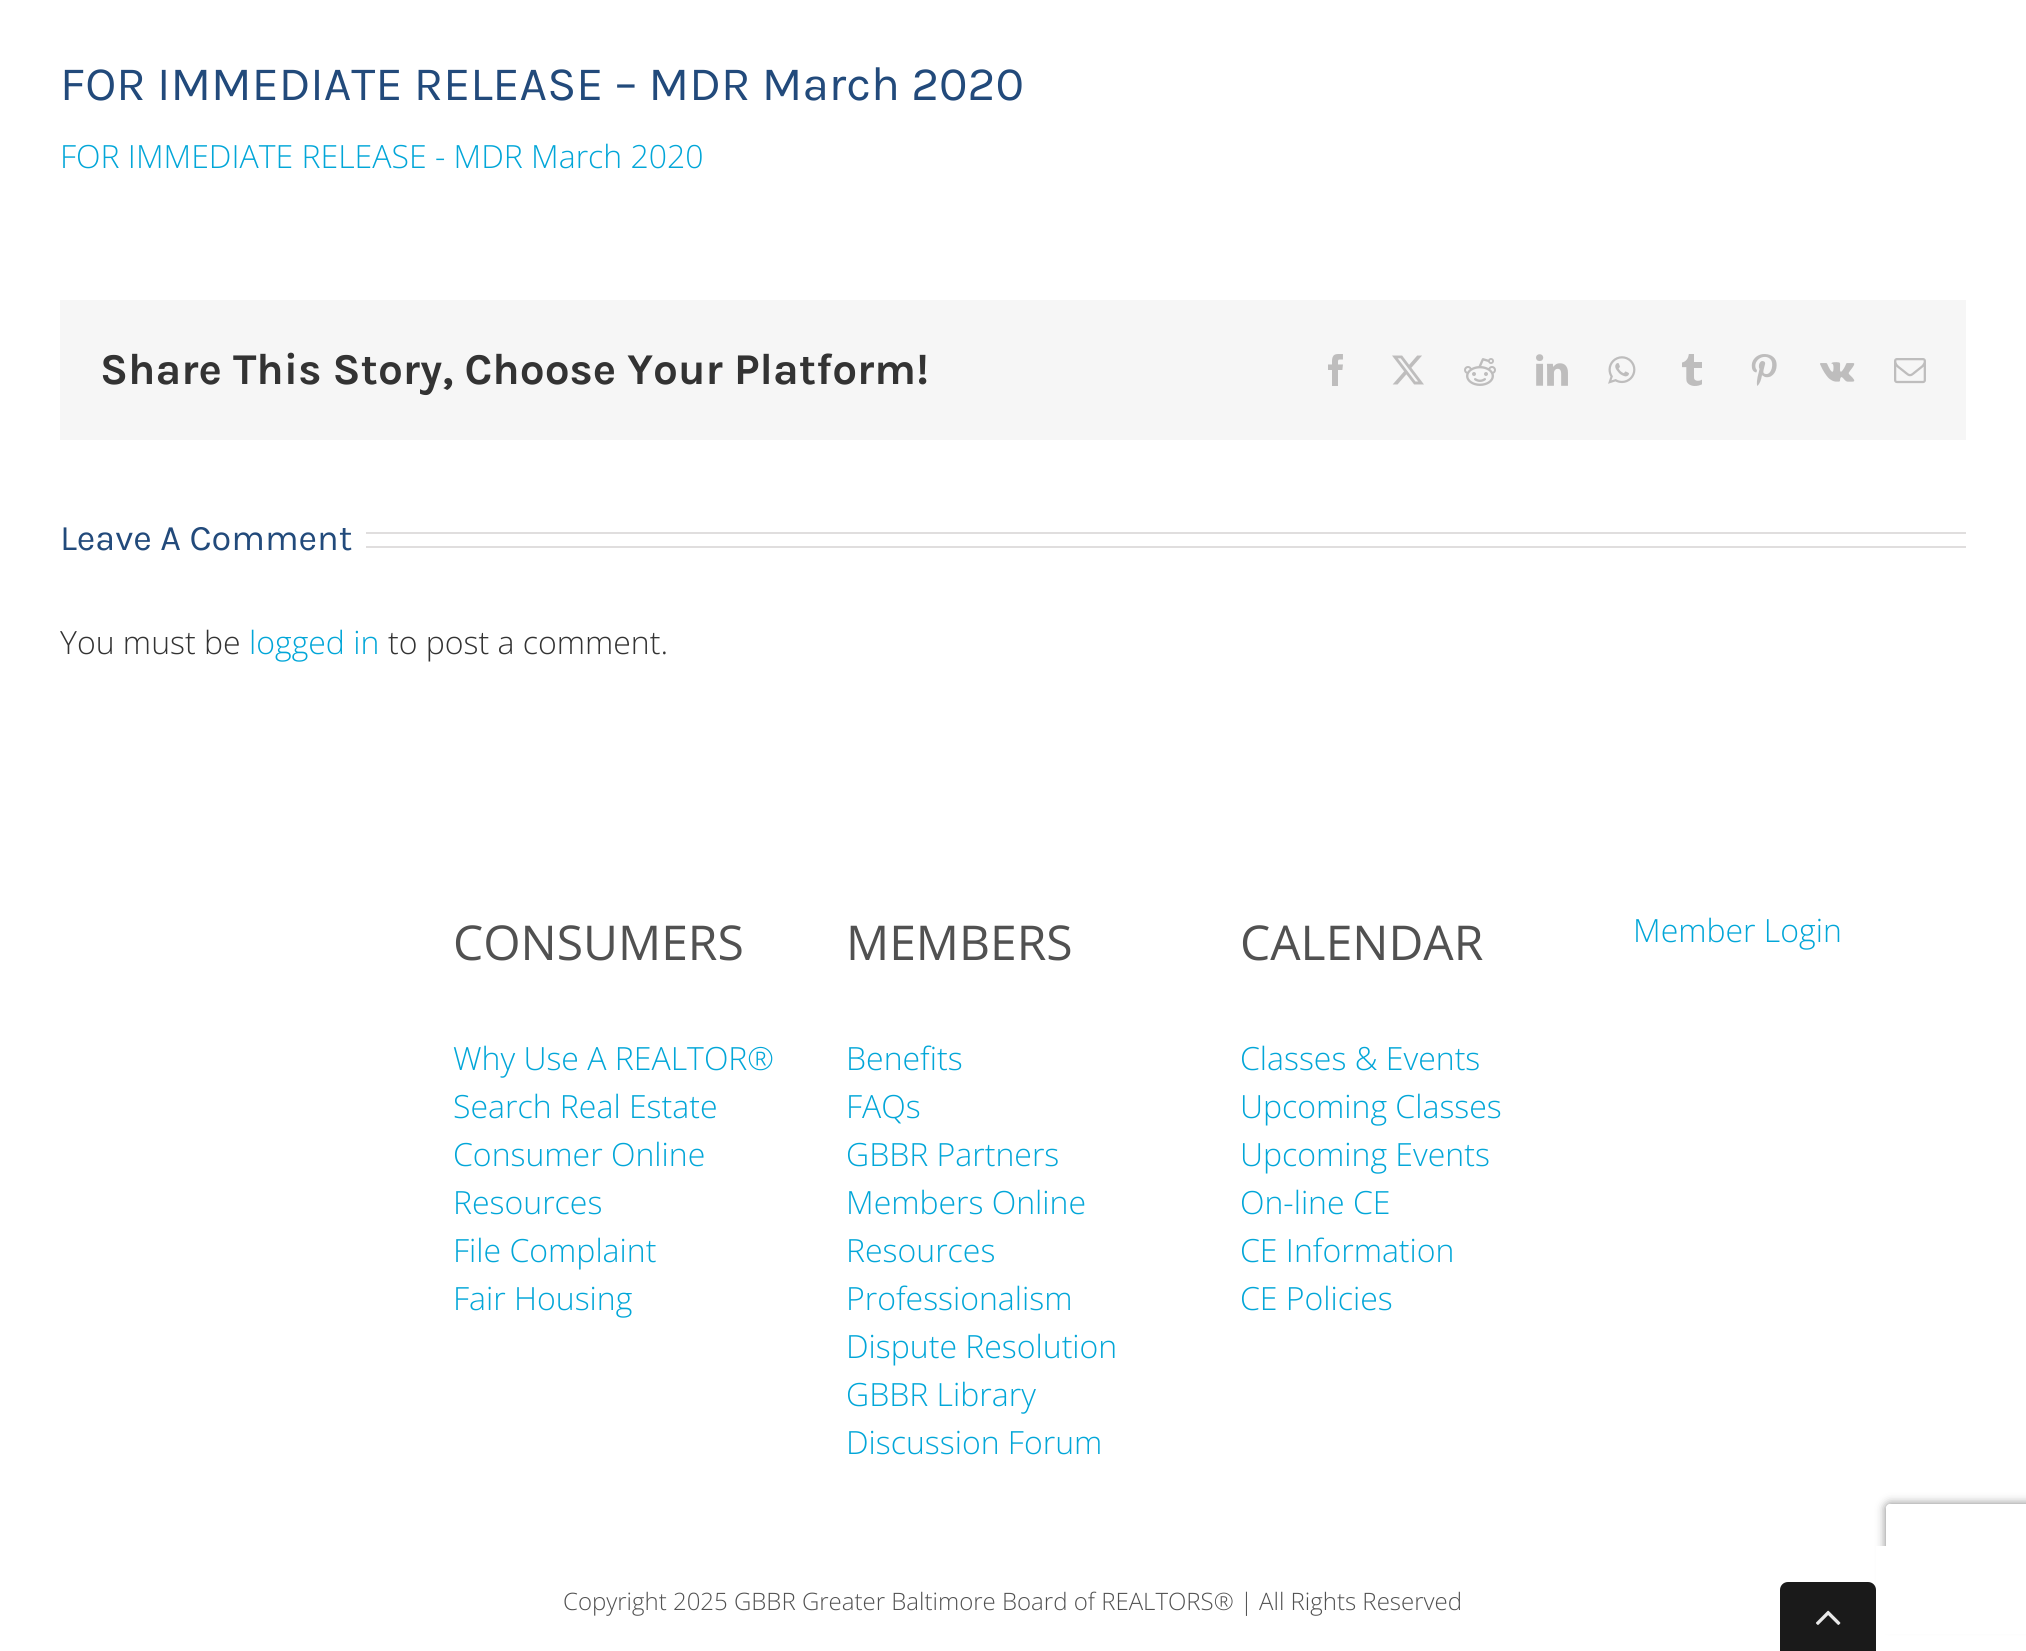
import math
import cairo

surface = cairo.ImageSurface(cairo.Format.RGB24, 2026, 1651)
ctx = cairo.Context(surface)
options = cairo.FontOptions()
options.set_hint_metrics(cairo.HintMetrics.OFF)
options.set_hint_style(cairo.HintStyle.NONE)
ctx.set_font_options(options)
ctx.set_miter_limit(4)


def ink(r, g, b):
    ctx.set_source_rgb(r / 255, g / 255, b / 255)


def write(x, y, s, family, size, color, bold=False, italic=False):
    ctx.select_font_face(family, cairo.FontSlant.ITALIC if italic else cairo.FontSlant.NORMAL, cairo.FontWeight.BOLD if bold else cairo.FontWeight.NORMAL)
    ctx.set_font_size(size)
    ink(*color)
    ctx.move_to(x, y)
    ctx.show_text(s)


def block(x, y, w, h, *color):
    ink(*color)
    ctx.rectangle(x, y, w, h)
    ctx.fill()


def round_path(x, y, w, h, r):
    ctx.new_sub_path()
    for i, (u, v) in enumerate([(x + w - r, y + h - r), (x + r, y + h - r), (x + r, y + r), (x + w - r, y + r)]):
        ctx.arc(u, v, r, i * math.pi / 2, (i + 1) * math.pi / 2)
    ctx.close_path()


def blur_box(x, y, w, h, r, blur, alpha):
    ctx.push_group_with_content(cairo.Content.ALPHA)
    ctx.set_operator(cairo.Operator.SOURCE)
    for i in range(15, -16, -2):
        e = blur * i / 6
        if min(w, h) + 2 * e > 0:
            ctx.set_source_rgba(0, 0, 0, alpha * math.erfc((i - 1) / 8.5) / 2)
            round_path(x - e, y - e, w + 2 * e, h + 2 * e, max(0, min(r + e + blur * .6, min(w, h) / 2 + e)))
            ctx.fill()
    ctx.mask(ctx.pop_group())


def paste(path, x, y, w, h):
    ctx.save()
    ctx.set_source_surface(cairo.ImageSurface.create_from_png(path), x, y)
    ctx.rectangle(x, y, w, h)
    ctx.fill()
    ctx.restore()


s1 = dict(family="Karla", size=48, color=(34, 74, 123))
s2 = dict(family="Open Sans Light", size=32, color=(2, 166, 216))
s3 = dict(family="Karla", size=44, color=(51, 51, 51), bold=True)
s4 = dict(family="Karla", size=36, color=(34, 74, 123))
s5 = dict(family="Open Sans Light", size=32, color=(51, 51, 51))
s6 = dict(family="Open Sans", size=48, color=(81, 81, 81))
s7 = dict(family="Open Sans Light", size=24, color=(81, 81, 81))

ink(255, 255, 255)
ctx.paint()
write(60, 100, "FOR IMMEDIATE RELEASE – MDR March 2020", **s1)
write(60, 168, "FOR IMMEDIATE RELEASE - MDR March 2020", **s2)
block(60, 300, 1906, 140, 246, 246, 246)
write(100, 384, "Share This Story, Choose Your Platform!", **s3)
paste("pic1.png", 1328, 354, 15, 32)
paste("pic2.png", 1392, 355, 32, 30)
paste("pic3.png", 1464, 358, 32, 28)
paste("pic4.png", 1536, 354, 32, 32)
paste("pic5.png", 1608, 356, 28, 28)
paste("pic6.png", 1682, 354, 20, 32)
paste("pic7.png", 1751, 354, 26, 32)
paste("pic8.png", 1820, 362, 35, 20)
paste("pic9.png", 1894, 358, 32, 26)
write(60, 550, "Leave A Comment", **s4)
block(366, 532, 1600, 2, 224, 222, 222)
block(366, 546, 1600, 2, 224, 222, 222)
write(60, 654, "You must be", **s5)
write(249, 654, "logged in", **s2)
write(388, 654, "to post a comment.", **s5)
write(453, 960, "CONSUMERS", **s6)
write(453, 1070, "Why Use A REALTOR®", **s2)
write(453, 1118, "Search Real Estate", **s2)
write(453, 1166, "Consumer Online", **s2)
write(453, 1214, "Resources", **s2)
write(453, 1262, "File Complaint", **s2)
write(453, 1310, "Fair Housing", **s2)
write(846, 960, "MEMBERS", **s6)
write(846, 1070, "Benefits", **s2)
write(846, 1118, "FAQs", **s2)
write(846, 1166, "GBBR Partners", **s2)
write(846, 1214, "Members Online", **s2)
write(846, 1262, "Resources", **s2)
write(846, 1310, "Professionalism", **s2)
write(846, 1358, "Dispute Resolution", **s2)
write(846, 1406, "GBBR Library", **s2)
write(846, 1454, "Discussion Forum", **s2)
write(1240, 960, "CALENDAR", **s6)
write(1240, 1070, "Classes & Events", **s2)
write(1240, 1118, "Upcoming Classes", **s2)
write(1240, 1166, "Upcoming Events", **s2)
write(1240, 1214, "On-line CE", **s2)
write(1240, 1262, "CE Information", **s2)
write(1240, 1310, "CE Policies", **s2)
write(1633, 942, "Member Login", **s2)
ctx.save()
ctx.set_fill_rule(cairo.FillRule.EVEN_ODD)
ctx.new_path()
ctx.move_to(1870, 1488)
ctx.line_to(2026, 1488)
ctx.line_to(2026, 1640)
ctx.line_to(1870, 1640)
ctx.close_path()
ctx.move_to(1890, 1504)
ctx.line_to(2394, 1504)
ctx.curve_to(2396, 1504, 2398, 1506, 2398, 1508)
ctx.line_to(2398, 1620)
ctx.curve_to(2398, 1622, 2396, 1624, 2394, 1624)
ctx.line_to(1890, 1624)
ctx.curve_to(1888, 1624, 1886, 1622, 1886, 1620)
ctx.line_to(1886, 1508)
ctx.curve_to(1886, 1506, 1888, 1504, 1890, 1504)
ctx.close_path()
ctx.clip()
ink(128, 128, 128)
blur_box(1886, 1504, 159, 120, 4, 5, 1)
ctx.restore()
block(1876, 1546, 150, 88, 255, 255, 255)
write(563, 1610, "Copyright 2025 GBBR Greater Baltimore Board of REALTORS® | All Rights Reserved", **s7)
ink(26, 26, 26)
ctx.new_path()
ctx.move_to(1788, 1582)
ctx.line_to(1868, 1582)
ctx.curve_to(1872.5, 1582, 1876, 1585.5, 1876, 1590)
ctx.line_to(1876, 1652)
ctx.line_to(1780, 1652)
ctx.line_to(1780, 1590)
ctx.curve_to(1780, 1585.5, 1783.5, 1582, 1788, 1582)
ctx.close_path()
ctx.fill()
paste("pic10.png", 1816, 1610, 25, 15)
surface.write_to_png("screenshot.png")
